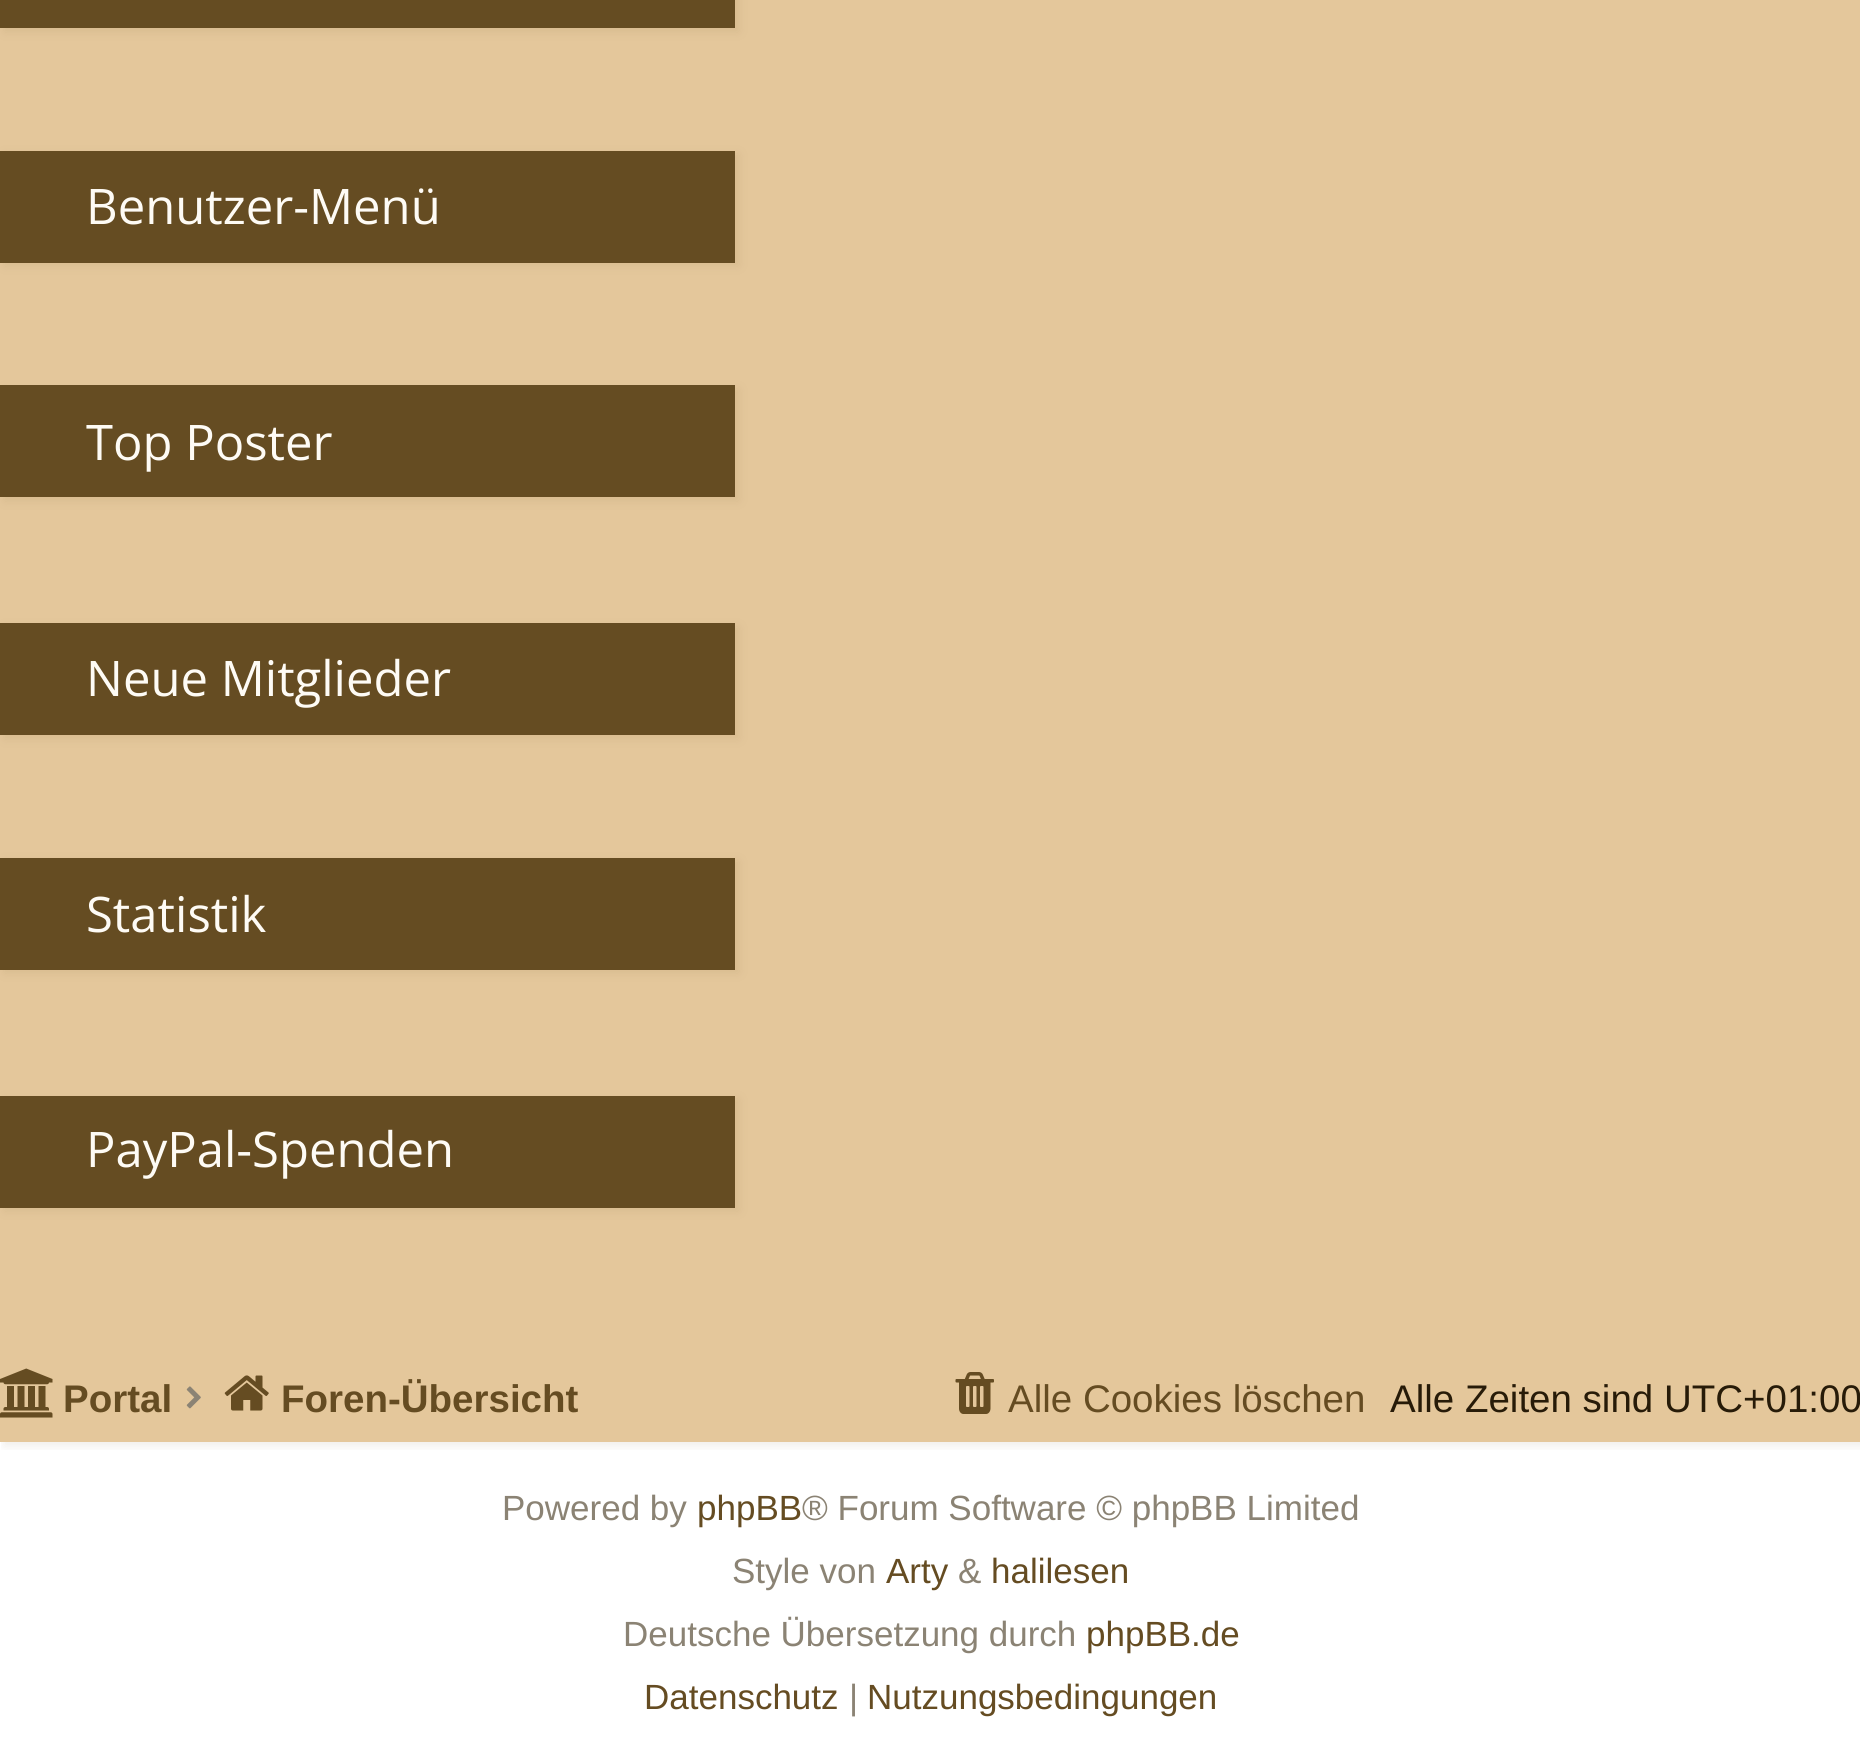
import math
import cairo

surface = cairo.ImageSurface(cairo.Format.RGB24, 1860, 1761)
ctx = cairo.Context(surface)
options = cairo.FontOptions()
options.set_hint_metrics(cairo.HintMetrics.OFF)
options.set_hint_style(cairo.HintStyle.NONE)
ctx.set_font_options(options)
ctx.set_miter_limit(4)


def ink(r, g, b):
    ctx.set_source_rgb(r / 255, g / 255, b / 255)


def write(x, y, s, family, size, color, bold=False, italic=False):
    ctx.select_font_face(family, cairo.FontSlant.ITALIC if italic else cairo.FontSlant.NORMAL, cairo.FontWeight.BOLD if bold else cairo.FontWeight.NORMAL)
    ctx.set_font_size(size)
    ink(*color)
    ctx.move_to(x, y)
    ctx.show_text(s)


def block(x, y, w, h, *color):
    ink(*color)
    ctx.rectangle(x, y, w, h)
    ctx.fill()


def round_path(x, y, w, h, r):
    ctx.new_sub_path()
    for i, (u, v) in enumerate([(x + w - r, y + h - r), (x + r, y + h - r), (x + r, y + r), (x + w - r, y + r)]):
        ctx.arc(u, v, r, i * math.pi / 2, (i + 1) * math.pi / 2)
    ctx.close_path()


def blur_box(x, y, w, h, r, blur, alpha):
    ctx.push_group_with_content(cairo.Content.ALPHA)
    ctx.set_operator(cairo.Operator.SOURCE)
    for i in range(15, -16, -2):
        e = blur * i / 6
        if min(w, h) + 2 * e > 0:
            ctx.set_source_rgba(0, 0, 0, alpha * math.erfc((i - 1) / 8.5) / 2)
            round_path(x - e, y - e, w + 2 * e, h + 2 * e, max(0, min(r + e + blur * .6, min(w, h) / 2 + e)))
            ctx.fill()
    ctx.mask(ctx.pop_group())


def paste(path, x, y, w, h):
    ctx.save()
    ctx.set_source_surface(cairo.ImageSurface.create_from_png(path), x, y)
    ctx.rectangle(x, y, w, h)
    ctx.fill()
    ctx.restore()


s1 = dict(family="Open Sans", size=49, color=(254, 251, 245))
s2 = dict(family="Liberation Sans", size=38.5, color=(101, 76, 34), bold=True)
s3 = dict(family="Liberation Sans", size=38.5, color=(101, 76, 34))
s4 = dict(family="Liberation Sans", size=38.5, color=(39, 27, 8))
s5 = dict(family="Liberation Sans", size=35, color=(139, 131, 116))
s6 = dict(family="Liberation Sans", size=35, color=(101, 76, 34))

ink(255, 255, 255)
ctx.paint()
block(0, 0, 1860, 1442, 228, 199, 155)
ink(101, 76, 34)
blur_box(4, -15, 735, 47, 0, 5, 0.1)
block(0, 0, 735, 28, 101, 76, 34)
ink(101, 76, 34)
blur_box(4, 154, 735, 112, 0, 5, 0.1)
block(0, 151, 735, 112, 101, 76, 34)
write(86, 224, "Benutzer-Menü", **s1)
ink(101, 76, 34)
blur_box(4, 389, 735, 112, 0, 5, 0.1)
block(0, 385, 735, 112, 101, 76, 34)
write(86, 460, "Top Poster", **s1)
ink(101, 76, 34)
blur_box(4, 627, 735, 112, 0, 5, 0.1)
block(0, 623, 735, 112, 101, 76, 34)
write(86, 696, "Neue Mitglieder", **s1)
ink(101, 76, 34)
blur_box(4, 861, 735, 112, 0, 5, 0.1)
block(0, 858, 735, 112, 101, 76, 34)
write(86, 932, "Statistik", **s1)
ink(101, 76, 34)
blur_box(4, 1099, 735, 112, 0, 5, 0.1)
block(0, 1096, 735, 112, 101, 76, 34)
write(86, 1167, "PayPal-Spenden", **s1)
ctx.save()
ctx.rectangle(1, 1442, 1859, 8)
ctx.clip()
ink(101, 76, 34)
blur_box(4, 1351, 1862, 95, 0, 5, 0.1)
ctx.restore()
paste("pic1.png", 0, 1368, 53, 50)
write(63, 1412, "Portal", **s2)
paste("pic2.png", 186, 1386, 15, 23)
paste("pic3.png", 224, 1375, 45, 36)
write(281, 1412, "Foren-Übersicht", **s2)
paste("pic4.png", 955, 1372, 39, 42)
write(1008, 1412, "Alle Cookies löschen", **s3)
write(1390, 1412, "Alle Zeiten sind UTC+01:00", **s4)
write(502, 1520, "Powered by", **s5)
write(697, 1520, "phpBB", **s6)
write(802, 1520, "® Forum Software © phpBB Limited", **s5)
write(732, 1583, "Style von", **s5)
write(886, 1583, "Arty", **s6)
write(958, 1583, "&", **s5)
write(991, 1583, "halilesen", **s6)
write(623, 1646, "Deutsche Übersetzung durch", **s5)
write(1086, 1646, "phpBB.de", **s6)
write(644, 1709, "Datenschutz", **s6)
write(849, 1709, "|", **s5)
write(867, 1709, "Nutzungsbedingungen", **s6)
surface.write_to_png("screenshot.png")
